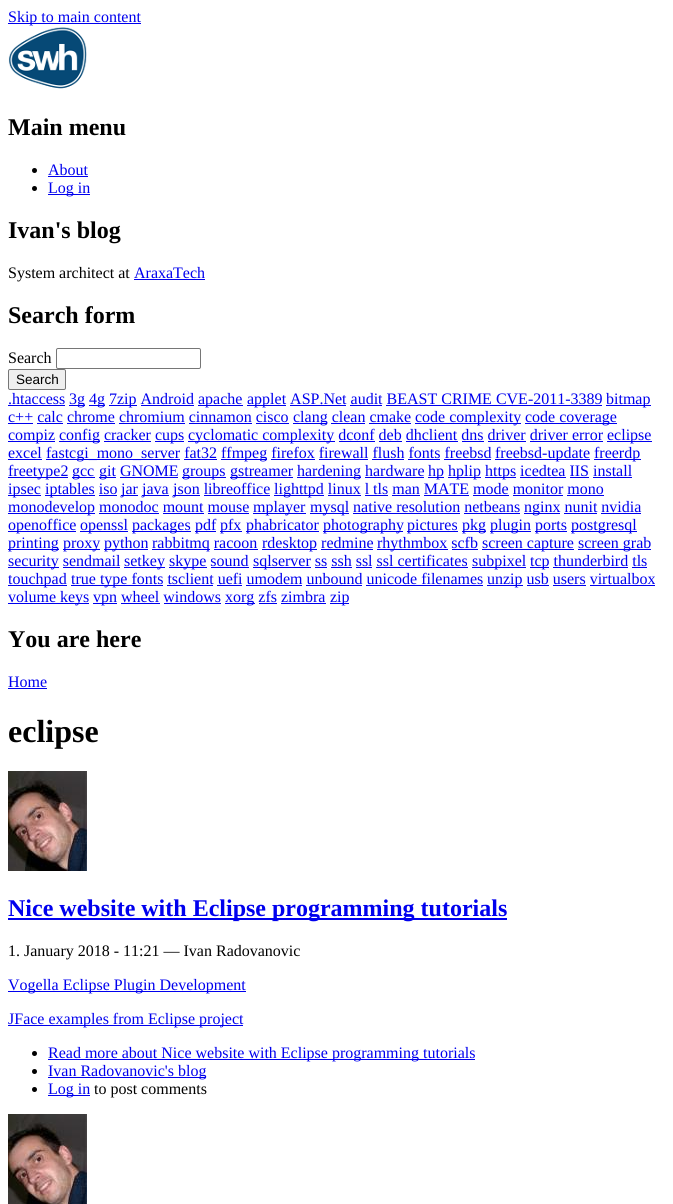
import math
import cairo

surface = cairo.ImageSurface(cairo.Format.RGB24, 673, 1204)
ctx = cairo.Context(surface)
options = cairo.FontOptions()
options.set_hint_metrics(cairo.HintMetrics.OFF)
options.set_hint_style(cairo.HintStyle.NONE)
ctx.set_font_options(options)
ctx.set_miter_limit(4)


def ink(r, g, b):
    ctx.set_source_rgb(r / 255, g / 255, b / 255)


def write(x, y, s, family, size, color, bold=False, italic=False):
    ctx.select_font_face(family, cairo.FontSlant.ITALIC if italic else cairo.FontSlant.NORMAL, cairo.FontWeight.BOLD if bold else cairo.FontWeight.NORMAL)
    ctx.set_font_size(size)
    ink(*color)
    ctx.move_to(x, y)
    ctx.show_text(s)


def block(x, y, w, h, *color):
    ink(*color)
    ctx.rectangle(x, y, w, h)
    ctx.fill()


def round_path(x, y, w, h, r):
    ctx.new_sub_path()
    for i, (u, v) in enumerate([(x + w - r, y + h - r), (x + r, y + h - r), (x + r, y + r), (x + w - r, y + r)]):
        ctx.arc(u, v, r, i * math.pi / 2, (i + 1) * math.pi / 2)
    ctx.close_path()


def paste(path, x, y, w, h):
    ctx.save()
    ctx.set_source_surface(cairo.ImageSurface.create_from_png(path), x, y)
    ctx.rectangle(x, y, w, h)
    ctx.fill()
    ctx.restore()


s1 = dict(family="Liberation Serif", size=16, color=(0, 0, 238))
s2 = dict(family="Liberation Serif", size=24, color=(0, 0, 0), bold=True)
s3 = dict(family="Liberation Serif", size=16, color=(0, 0, 0))
s4 = dict(family="Liberation Sans", size=13.5, color=(0, 0, 0))
s5 = dict(family="Liberation Serif", size=32, color=(0, 0, 0), bold=True)
s6 = dict(family="Liberation Serif", size=24, color=(0, 0, 238), bold=True)

ink(255, 255, 255)
ctx.paint()
block(8, 23, 133, 1, 0, 0, 238)
write(8, 22, "Skip to main content", **s1)
paste("pic1.png", 8, 27, 79, 62)
write(8, 135, "Main menu", **s2)
ctx.new_path()
ctx.arc(34.5, 170.5, 2.5, 0, 2 * math.pi)
ctx.fill()
write(48, 175, "About", **s1)
block(48, 176, 40, 1, 0, 0, 238)
ink(0, 0, 0)
ctx.new_path()
ctx.arc(34.5, 188.5, 2.5, 0, 2 * math.pi)
ctx.fill()
block(48, 194, 42, 1, 0, 0, 238)
write(48, 193, "Log in", **s1)
write(8, 238, "Ivan's blog", **s2)
write(8, 278, "System architect at", **s3)
write(134, 278, "AraxaTech", **s1)
block(134, 279, 71, 1, 0, 0, 238)
write(8, 323, "Search form", **s2)
write(8, 363, "Search", **s3)
round_path(56.5, 348.5, 144, 20, 1.5)
ink(118, 118, 118)
ctx.set_line_width(1)
ctx.stroke()
ink(239, 239, 239)
round_path(8.5, 369.5, 57, 20, 1.5)
ctx.fill_preserve()
ink(118, 118, 118)
ctx.stroke()
write(16, 384, "Search", **s4)
write(8, 404, ".htaccess", **s1)
block(8, 405, 57, 1, 0, 0, 238)
block(69, 405, 16, 1, 0, 0, 238)
write(69, 404, "3g", **s1)
block(89, 405, 16, 1, 0, 0, 238)
write(89, 404, "4g", **s1)
block(109, 405, 28, 1, 0, 0, 238)
write(109, 404, "7zip Android", **s1)
block(198, 405, 45, 1, 0, 0, 238)
write(198, 404, "apache", **s1)
block(247, 405, 39, 1, 0, 0, 238)
write(247, 404, "applet ASP.Net audit BEAST CRIME CVE-2011-3389", **s1)
block(606, 405, 45, 1, 0, 0, 238)
write(606, 404, "bitmap", **s1)
block(141, 405, 53, 1, 0, 0, 238)
block(290, 405, 56, 1, 0, 0, 238)
block(350, 405, 32, 1, 0, 0, 238)
block(386, 405, 216, 1, 0, 0, 238)
write(8, 422, "c++ calc chrome chromium cinnamon cisco", **s1)
block(8, 423, 25, 1, 0, 0, 238)
block(293, 423, 34, 1, 0, 0, 238)
write(293, 422, "clang clean cmake", **s1)
block(415, 423, 106, 1, 0, 0, 238)
write(415, 422, "code complexity", **s1)
block(525, 423, 92, 1, 0, 0, 238)
write(525, 422, "code coverage", **s1)
block(37, 423, 26, 1, 0, 0, 238)
block(67, 423, 48, 1, 0, 0, 238)
block(119, 423, 66, 1, 0, 0, 238)
block(189, 423, 63, 1, 0, 0, 238)
block(256, 423, 33, 1, 0, 0, 238)
block(331, 423, 34, 1, 0, 0, 238)
block(369, 423, 42, 1, 0, 0, 238)
block(8, 441, 47, 1, 0, 0, 238)
write(8, 440, "compiz", **s1)
block(59, 441, 41, 1, 0, 0, 238)
write(59, 440, "config cracker", **s1)
block(155, 441, 29, 1, 0, 0, 238)
write(155, 440, "cups", **s1)
block(188, 441, 147, 1, 0, 0, 238)
write(188, 440, "cyclomatic complexity dconf deb dhclient dns driver driver error", **s1)
block(607, 441, 45, 1, 0, 0, 238)
write(607, 440, "eclipse", **s1)
block(104, 441, 47, 1, 0, 0, 238)
block(339, 441, 36, 1, 0, 0, 238)
block(379, 441, 23, 1, 0, 0, 238)
block(406, 441, 52, 1, 0, 0, 238)
block(462, 441, 22, 1, 0, 0, 238)
block(488, 441, 38, 1, 0, 0, 238)
block(530, 441, 73, 1, 0, 0, 238)
write(8, 458, "excel", **s1)
block(8, 459, 34, 1, 0, 0, 238)
block(46, 459, 134, 1, 0, 0, 238)
write(46, 458, "fastcgi_mono_server fat32", **s1)
block(221, 459, 46, 1, 0, 0, 238)
write(221, 458, "ffmpeg firefox firewall flush fonts freebsd", **s1)
block(495, 459, 95, 1, 0, 0, 238)
write(495, 458, "freebsd-update", **s1)
block(594, 459, 47, 1, 0, 0, 238)
write(594, 458, "freerdp", **s1)
block(184, 459, 33, 1, 0, 0, 238)
block(271, 459, 44, 1, 0, 0, 238)
block(319, 459, 49, 1, 0, 0, 238)
block(372, 459, 32, 1, 0, 0, 238)
block(408, 459, 32, 1, 0, 0, 238)
block(444, 459, 47, 1, 0, 0, 238)
block(8, 477, 60, 1, 0, 0, 238)
write(8, 476, "freetype2", **s1)
block(72, 477, 23, 1, 0, 0, 238)
write(72, 476, "gcc", **s1)
block(99, 477, 17, 1, 0, 0, 238)
write(99, 476, "git GNOME", **s1)
block(182, 477, 44, 1, 0, 0, 238)
write(182, 476, "groups", **s1)
block(230, 477, 63, 1, 0, 0, 238)
write(230, 476, "gstreamer", **s1)
block(297, 477, 64, 1, 0, 0, 238)
write(297, 476, "hardening hardware", **s1)
block(428, 477, 16, 1, 0, 0, 238)
write(428, 476, "hp", **s1)
block(448, 477, 33, 1, 0, 0, 238)
write(448, 476, "hplip", **s1)
block(485, 477, 31, 1, 0, 0, 238)
write(485, 476, "https icedtea IIS install", **s1)
block(120, 477, 58, 1, 0, 0, 238)
block(365, 477, 59, 1, 0, 0, 238)
block(520, 477, 46, 1, 0, 0, 238)
block(570, 477, 19, 1, 0, 0, 238)
block(593, 477, 39, 1, 0, 0, 238)
block(8, 495, 33, 1, 0, 0, 238)
write(8, 494, "ipsec", **s1)
block(45, 495, 50, 1, 0, 0, 238)
write(45, 494, "iptables iso", **s1)
block(121, 495, 17, 1, 0, 0, 238)
write(121, 494, "jar", **s1)
block(142, 495, 27, 1, 0, 0, 238)
write(142, 494, "java", **s1)
block(173, 495, 27, 1, 0, 0, 238)
write(173, 494, "json libreoffice", **s1)
block(274, 495, 50, 1, 0, 0, 238)
write(274, 494, "lighttpd linux l tls man MATE mode monitor mono", **s1)
block(99, 495, 18, 1, 0, 0, 238)
block(204, 495, 66, 1, 0, 0, 238)
block(328, 495, 33, 1, 0, 0, 238)
block(365, 495, 23, 1, 0, 0, 238)
block(392, 495, 28, 1, 0, 0, 238)
block(424, 495, 45, 1, 0, 0, 238)
block(473, 495, 36, 1, 0, 0, 238)
block(513, 495, 50, 1, 0, 0, 238)
block(567, 495, 37, 1, 0, 0, 238)
block(8, 513, 87, 1, 0, 0, 238)
write(8, 512, "monodevelop monodoc mount mouse", **s1)
block(253, 513, 53, 1, 0, 0, 238)
write(253, 512, "mplayer", **s1)
block(310, 513, 39, 1, 0, 0, 238)
write(310, 512, "mysql native resolution netbeans", **s1)
block(524, 513, 36, 1, 0, 0, 238)
write(524, 512, "nginx nunit nvidia", **s1)
block(99, 513, 60, 1, 0, 0, 238)
block(163, 513, 41, 1, 0, 0, 238)
block(208, 513, 41, 1, 0, 0, 238)
block(353, 513, 107, 1, 0, 0, 238)
block(464, 513, 56, 1, 0, 0, 238)
block(564, 513, 33, 1, 0, 0, 238)
block(601, 513, 40, 1, 0, 0, 238)
block(8, 531, 68, 1, 0, 0, 238)
write(8, 530, "openoffice", **s1)
block(80, 531, 48, 1, 0, 0, 238)
write(80, 530, "openssl", **s1)
block(132, 531, 59, 1, 0, 0, 238)
write(132, 530, "packages", **s1)
block(195, 531, 21, 1, 0, 0, 238)
write(195, 530, "pdf", **s1)
block(220, 531, 22, 1, 0, 0, 238)
write(220, 530, "pfx", **s1)
block(246, 531, 73, 1, 0, 0, 238)
write(246, 530, "phabricator", **s1)
block(323, 531, 80, 1, 0, 0, 238)
write(323, 530, "photography", **s1)
block(407, 531, 51, 1, 0, 0, 238)
write(407, 530, "pictures", **s1)
block(462, 531, 24, 1, 0, 0, 238)
write(462, 530, "pkg", **s1)
block(490, 531, 41, 1, 0, 0, 238)
write(490, 530, "plugin", **s1)
block(535, 531, 32, 1, 0, 0, 238)
write(535, 530, "ports", **s1)
block(571, 531, 66, 1, 0, 0, 238)
write(571, 530, "postgresql", **s1)
block(8, 549, 51, 1, 0, 0, 238)
write(8, 548, "printing", **s1)
block(63, 549, 37, 1, 0, 0, 238)
write(63, 548, "proxy", **s1)
block(104, 549, 44, 1, 0, 0, 238)
write(104, 548, "python", **s1)
block(152, 549, 58, 1, 0, 0, 238)
write(152, 548, "rabbitmq racoon", **s1)
block(262, 549, 55, 1, 0, 0, 238)
write(262, 548, "rdesktop redmine", **s1)
block(377, 549, 71, 1, 0, 0, 238)
write(377, 548, "rhythmbox scfb", **s1)
block(482, 549, 92, 1, 0, 0, 238)
write(482, 548, "screen capture", **s1)
block(578, 549, 73, 1, 0, 0, 238)
write(578, 548, "screen grab", **s1)
block(214, 549, 44, 1, 0, 0, 238)
block(321, 549, 52, 1, 0, 0, 238)
block(452, 549, 26, 1, 0, 0, 238)
block(8, 567, 51, 1, 0, 0, 238)
write(8, 566, "security sendmail", **s1)
block(124, 567, 41, 1, 0, 0, 238)
write(124, 566, "setkey", **s1)
block(169, 567, 38, 1, 0, 0, 238)
write(169, 566, "skype sound", **s1)
block(253, 567, 58, 1, 0, 0, 238)
write(253, 566, "sqlserver ss ssh ssl ssl certificates", **s1)
block(472, 567, 54, 1, 0, 0, 238)
write(472, 566, "subpixel", **s1)
block(530, 567, 19, 1, 0, 0, 238)
write(530, 566, "tcp thunderbird tls", **s1)
block(63, 567, 57, 1, 0, 0, 238)
block(211, 567, 38, 1, 0, 0, 238)
block(315, 567, 12, 1, 0, 0, 238)
block(331, 567, 21, 1, 0, 0, 238)
block(356, 567, 16, 1, 0, 0, 238)
block(376, 567, 92, 1, 0, 0, 238)
block(553, 567, 75, 1, 0, 0, 238)
block(632, 567, 15, 1, 0, 0, 238)
block(8, 585, 59, 1, 0, 0, 238)
write(8, 584, "touchpad", **s1)
block(71, 585, 92, 1, 0, 0, 238)
write(71, 584, "true type fonts tsclient uefi umodem unbound unicode filenames", **s1)
block(487, 585, 36, 1, 0, 0, 238)
write(487, 584, "unzip usb users virtualbox", **s1)
block(167, 585, 46, 1, 0, 0, 238)
block(217, 585, 25, 1, 0, 0, 238)
block(246, 585, 56, 1, 0, 0, 238)
block(306, 585, 56, 1, 0, 0, 238)
block(366, 585, 117, 1, 0, 0, 238)
block(527, 585, 22, 1, 0, 0, 238)
block(553, 585, 33, 1, 0, 0, 238)
block(590, 585, 65, 1, 0, 0, 238)
block(8, 603, 81, 1, 0, 0, 238)
write(8, 602, "volume keys", **s1)
block(93, 603, 24, 1, 0, 0, 238)
write(93, 602, "vpn wheel windows", **s1)
block(225, 603, 30, 1, 0, 0, 238)
write(225, 602, "xorg zfs zimbra", **s1)
block(330, 603, 19, 1, 0, 0, 238)
write(330, 602, "zip", **s1)
block(121, 603, 39, 1, 0, 0, 238)
block(164, 603, 57, 1, 0, 0, 238)
block(259, 603, 18, 1, 0, 0, 238)
block(281, 603, 45, 1, 0, 0, 238)
write(8, 647, "You are here", **s2)
write(8, 687, "Home", **s1)
block(8, 688, 39, 1, 0, 0, 238)
write(8, 742, "eclipse", **s5)
paste("pic2.png", 8, 771, 79, 100)
block(8, 918, 499, 2, 0, 0, 238)
write(8, 916, "Nice website with Eclipse programming tutorials", **s6)
write(8, 956, "1. January 2018 - 11:21 — Ivan Radovanovic", **s3)
block(8, 991, 238, 1, 0, 0, 238)
write(8, 990, "Vogella Eclipse Plugin Development", **s1)
block(8, 1025, 235, 1, 0, 0, 238)
write(8, 1024, "JFace examples from Eclipse project", **s1)
ink(0, 0, 0)
ctx.new_path()
ctx.arc(34.5, 1053.5, 2.5, 0, 2 * math.pi)
ctx.fill()
block(48, 1059, 427, 1, 0, 0, 238)
write(48, 1058, "Read more about Nice website with Eclipse programming tutorials", **s1)
ink(0, 0, 0)
ctx.new_path()
ctx.arc(34.5, 1071.5, 2.5, 0, 2 * math.pi)
ctx.fill()
block(48, 1077, 158, 1, 0, 0, 238)
write(48, 1076, "Ivan Radovanovic's blog", **s1)
ink(0, 0, 0)
ctx.new_path()
ctx.arc(34.5, 1089.5, 2.5, 0, 2 * math.pi)
ctx.fill()
block(48, 1095, 42, 1, 0, 0, 238)
write(48, 1094, "Log in", **s1)
write(94, 1094, "to post comments", **s3)
paste("pic3.png", 8, 1114, 79, 90)
surface.write_to_png("screenshot.png")
